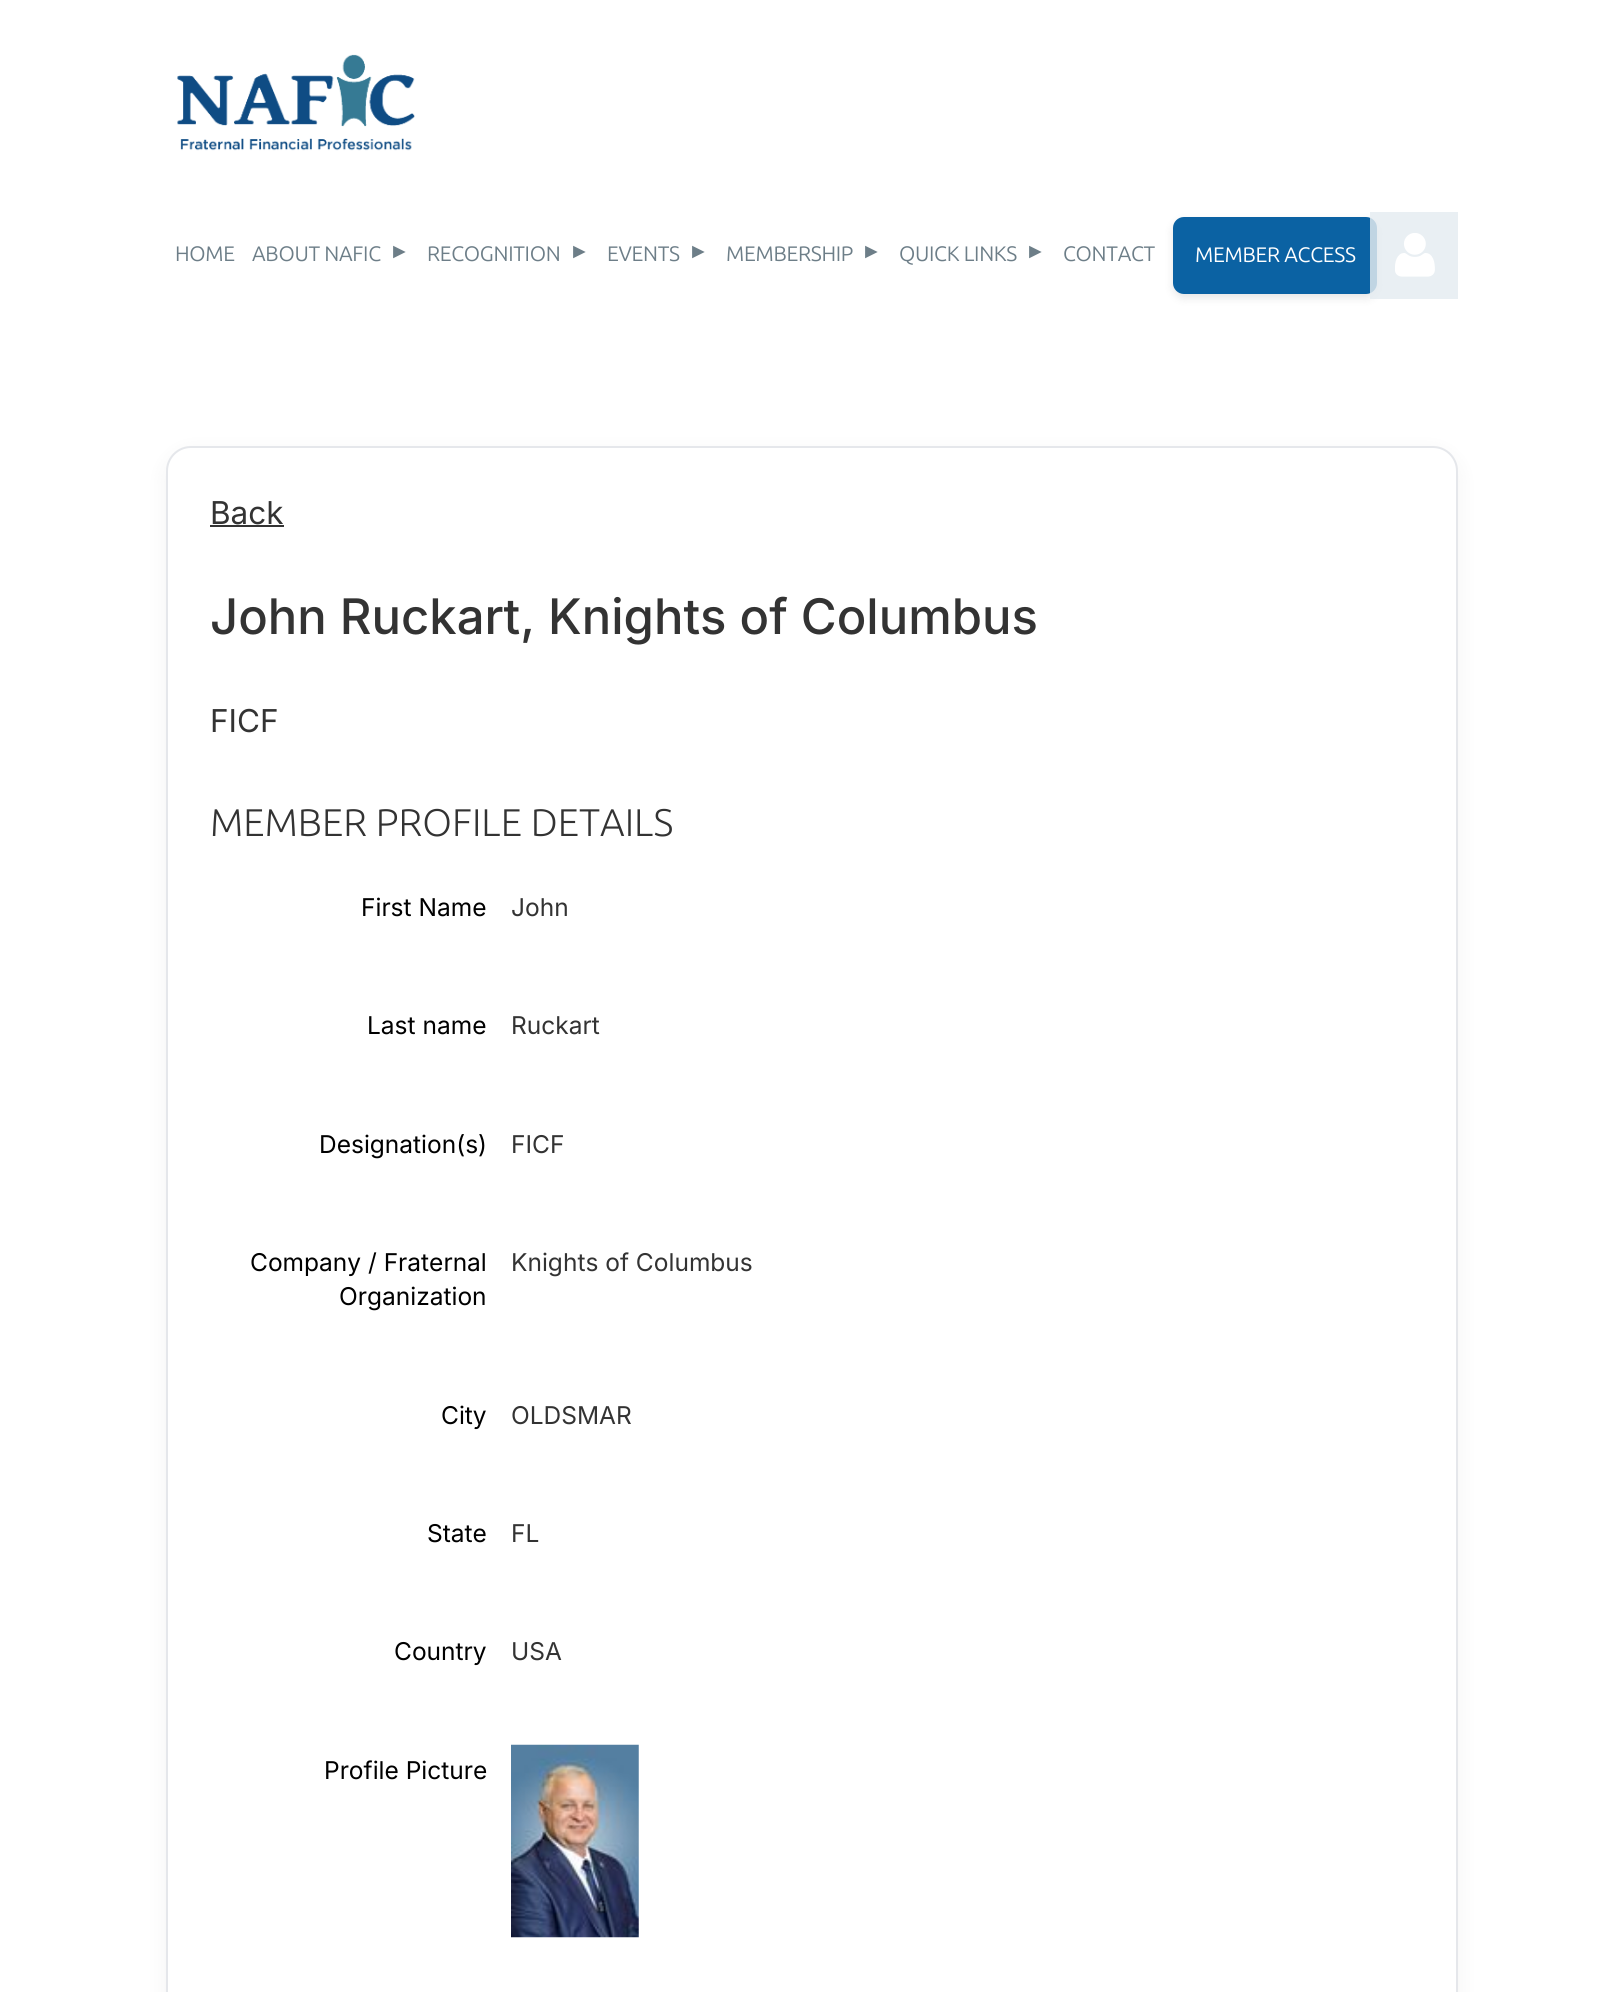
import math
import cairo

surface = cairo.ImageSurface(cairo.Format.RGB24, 1623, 1992)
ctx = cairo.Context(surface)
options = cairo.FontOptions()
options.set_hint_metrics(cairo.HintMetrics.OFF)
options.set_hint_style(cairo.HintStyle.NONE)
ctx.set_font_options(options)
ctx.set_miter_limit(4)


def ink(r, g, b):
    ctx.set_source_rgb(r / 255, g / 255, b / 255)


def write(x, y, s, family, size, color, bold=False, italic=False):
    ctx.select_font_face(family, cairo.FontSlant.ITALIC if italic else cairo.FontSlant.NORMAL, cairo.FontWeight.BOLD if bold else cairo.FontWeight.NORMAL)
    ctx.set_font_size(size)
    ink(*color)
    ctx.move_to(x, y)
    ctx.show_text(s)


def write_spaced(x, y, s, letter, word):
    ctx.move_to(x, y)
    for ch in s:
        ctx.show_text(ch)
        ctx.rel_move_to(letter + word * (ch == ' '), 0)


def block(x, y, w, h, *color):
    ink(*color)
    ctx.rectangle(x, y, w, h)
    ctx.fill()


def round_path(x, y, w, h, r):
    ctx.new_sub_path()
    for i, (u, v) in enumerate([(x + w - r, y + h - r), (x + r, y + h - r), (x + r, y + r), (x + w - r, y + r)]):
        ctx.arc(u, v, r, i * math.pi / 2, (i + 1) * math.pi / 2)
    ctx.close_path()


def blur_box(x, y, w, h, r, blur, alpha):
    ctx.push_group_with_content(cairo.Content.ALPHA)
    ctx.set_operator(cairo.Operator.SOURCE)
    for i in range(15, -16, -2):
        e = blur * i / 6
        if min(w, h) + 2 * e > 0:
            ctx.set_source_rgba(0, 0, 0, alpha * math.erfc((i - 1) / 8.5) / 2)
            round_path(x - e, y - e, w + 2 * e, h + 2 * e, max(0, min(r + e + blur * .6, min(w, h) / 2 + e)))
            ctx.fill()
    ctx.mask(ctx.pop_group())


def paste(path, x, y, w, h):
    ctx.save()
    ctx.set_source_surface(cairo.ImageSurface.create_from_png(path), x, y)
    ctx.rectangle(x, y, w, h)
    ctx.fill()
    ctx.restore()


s1 = dict(family="Inter", size=31.5, color=(51, 51, 51))
s2 = dict(family="Inter Medium", size=49, color=(51, 51, 51))
s3 = dict(family="Ubuntu Light", size=38.5, color=(51, 51, 51))
s4 = dict(family="Inter", size=24.5, color=(0, 0, 0))
s5 = dict(family="Inter", size=24.5, color=(51, 51, 51))

ink(255, 255, 255)
ctx.paint()
paste("pic1.png", 177, 54, 238, 97)
ctx.select_font_face("Ubuntu")
ctx.set_font_size(21)
ink(109, 126, 136)
write_spaced(175, 261, "HOME", -0.3, 0)
write_spaced(252, 261, "ABOUT NAFIC", -0.3, 0)
ctx.select_font_face("Liberation Sans")
write_spaced(389, 258, "►", -0.3, 0)
ctx.select_font_face("Ubuntu")
write_spaced(427, 261, "RECOGNITION", -0.3, 0)
ctx.select_font_face("Liberation Sans")
write_spaced(569, 258, "►", -0.3, 0)
ctx.select_font_face("Ubuntu")
write_spaced(607, 261, "EVENTS", -0.3, 0)
ctx.select_font_face("Liberation Sans")
write_spaced(688, 258, "►", -0.3, 0)
ctx.select_font_face("Ubuntu")
write_spaced(726, 261, "MEMBERSHIP", -0.3, 0)
ctx.select_font_face("Liberation Sans")
write_spaced(861, 258, "►", -0.3, 0)
ctx.select_font_face("Ubuntu")
write_spaced(899, 261, "QUICK LINKS", -0.3, 0)
ctx.select_font_face("Liberation Sans")
write_spaced(1025, 258, "►", -0.3, 0)
ctx.select_font_face("Ubuntu")
write_spaced(1063, 261, "CONTACT", -0.3, 0)
ink(0, 0, 0)
blur_box(1173, 221, 204, 77, 11, 4.5, 0.1)
ink(11, 98, 163)
round_path(1174, 218, 202, 75, 10)
ctx.fill_preserve()
ctx.stroke()
ink(255, 255, 255)
write_spaced(1195, 262, "MEMBER ACCESS", -0.3, 0)
ctx.set_source_rgba(0.898, 0.925, 0.945, 0.83)
ctx.rectangle(1370, 212, 88, 87)
ctx.fill()
paste("pic2.png", 1395, 233, 40, 44)
ink(0, 0, 0)
blur_box(166, 453, 1292, 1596, 25, 10.5, 0.05)
ink(255, 255, 255)
round_path(167, 447, 1290, 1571, 24)
ctx.fill_preserve()
ink(229, 231, 235)
ctx.stroke()
write(210, 524, "Back", **s1)
block(210, 525, 74, 2, 51, 51, 51)
write(210, 634, "John Ruckart, Knights of Columbus", **s2)
write(210, 732, "FICF", **s1)
write(210, 836, "MEMBER PROFILE DETAILS", **s3)
write(361, 916, "First Name", **s4)
write(511, 916, "John", **s5)
write(367, 1034, "Last name", **s4)
write(511, 1034, "Ruckart", **s5)
write(319, 1153, "Designation(s)", **s4)
write(511, 1153, "FICF", **s5)
write(250, 1271, "Company / Fraternal", **s4)
write(339, 1305, "Organization", **s4)
write(511, 1271, "Knights of Columbus", **s5)
write(441, 1424, "City", **s4)
write(511, 1424, "OLDSMAR", **s5)
write(427, 1542, "State", **s4)
write(511, 1542, "FL", **s5)
write(394, 1660, "Country", **s4)
write(511, 1660, "USA", **s5)
write(324, 1779, "Profile Picture", **s4)
paste("pic3.png", 511, 1744, 128, 194)
surface.write_to_png("screenshot.png")
